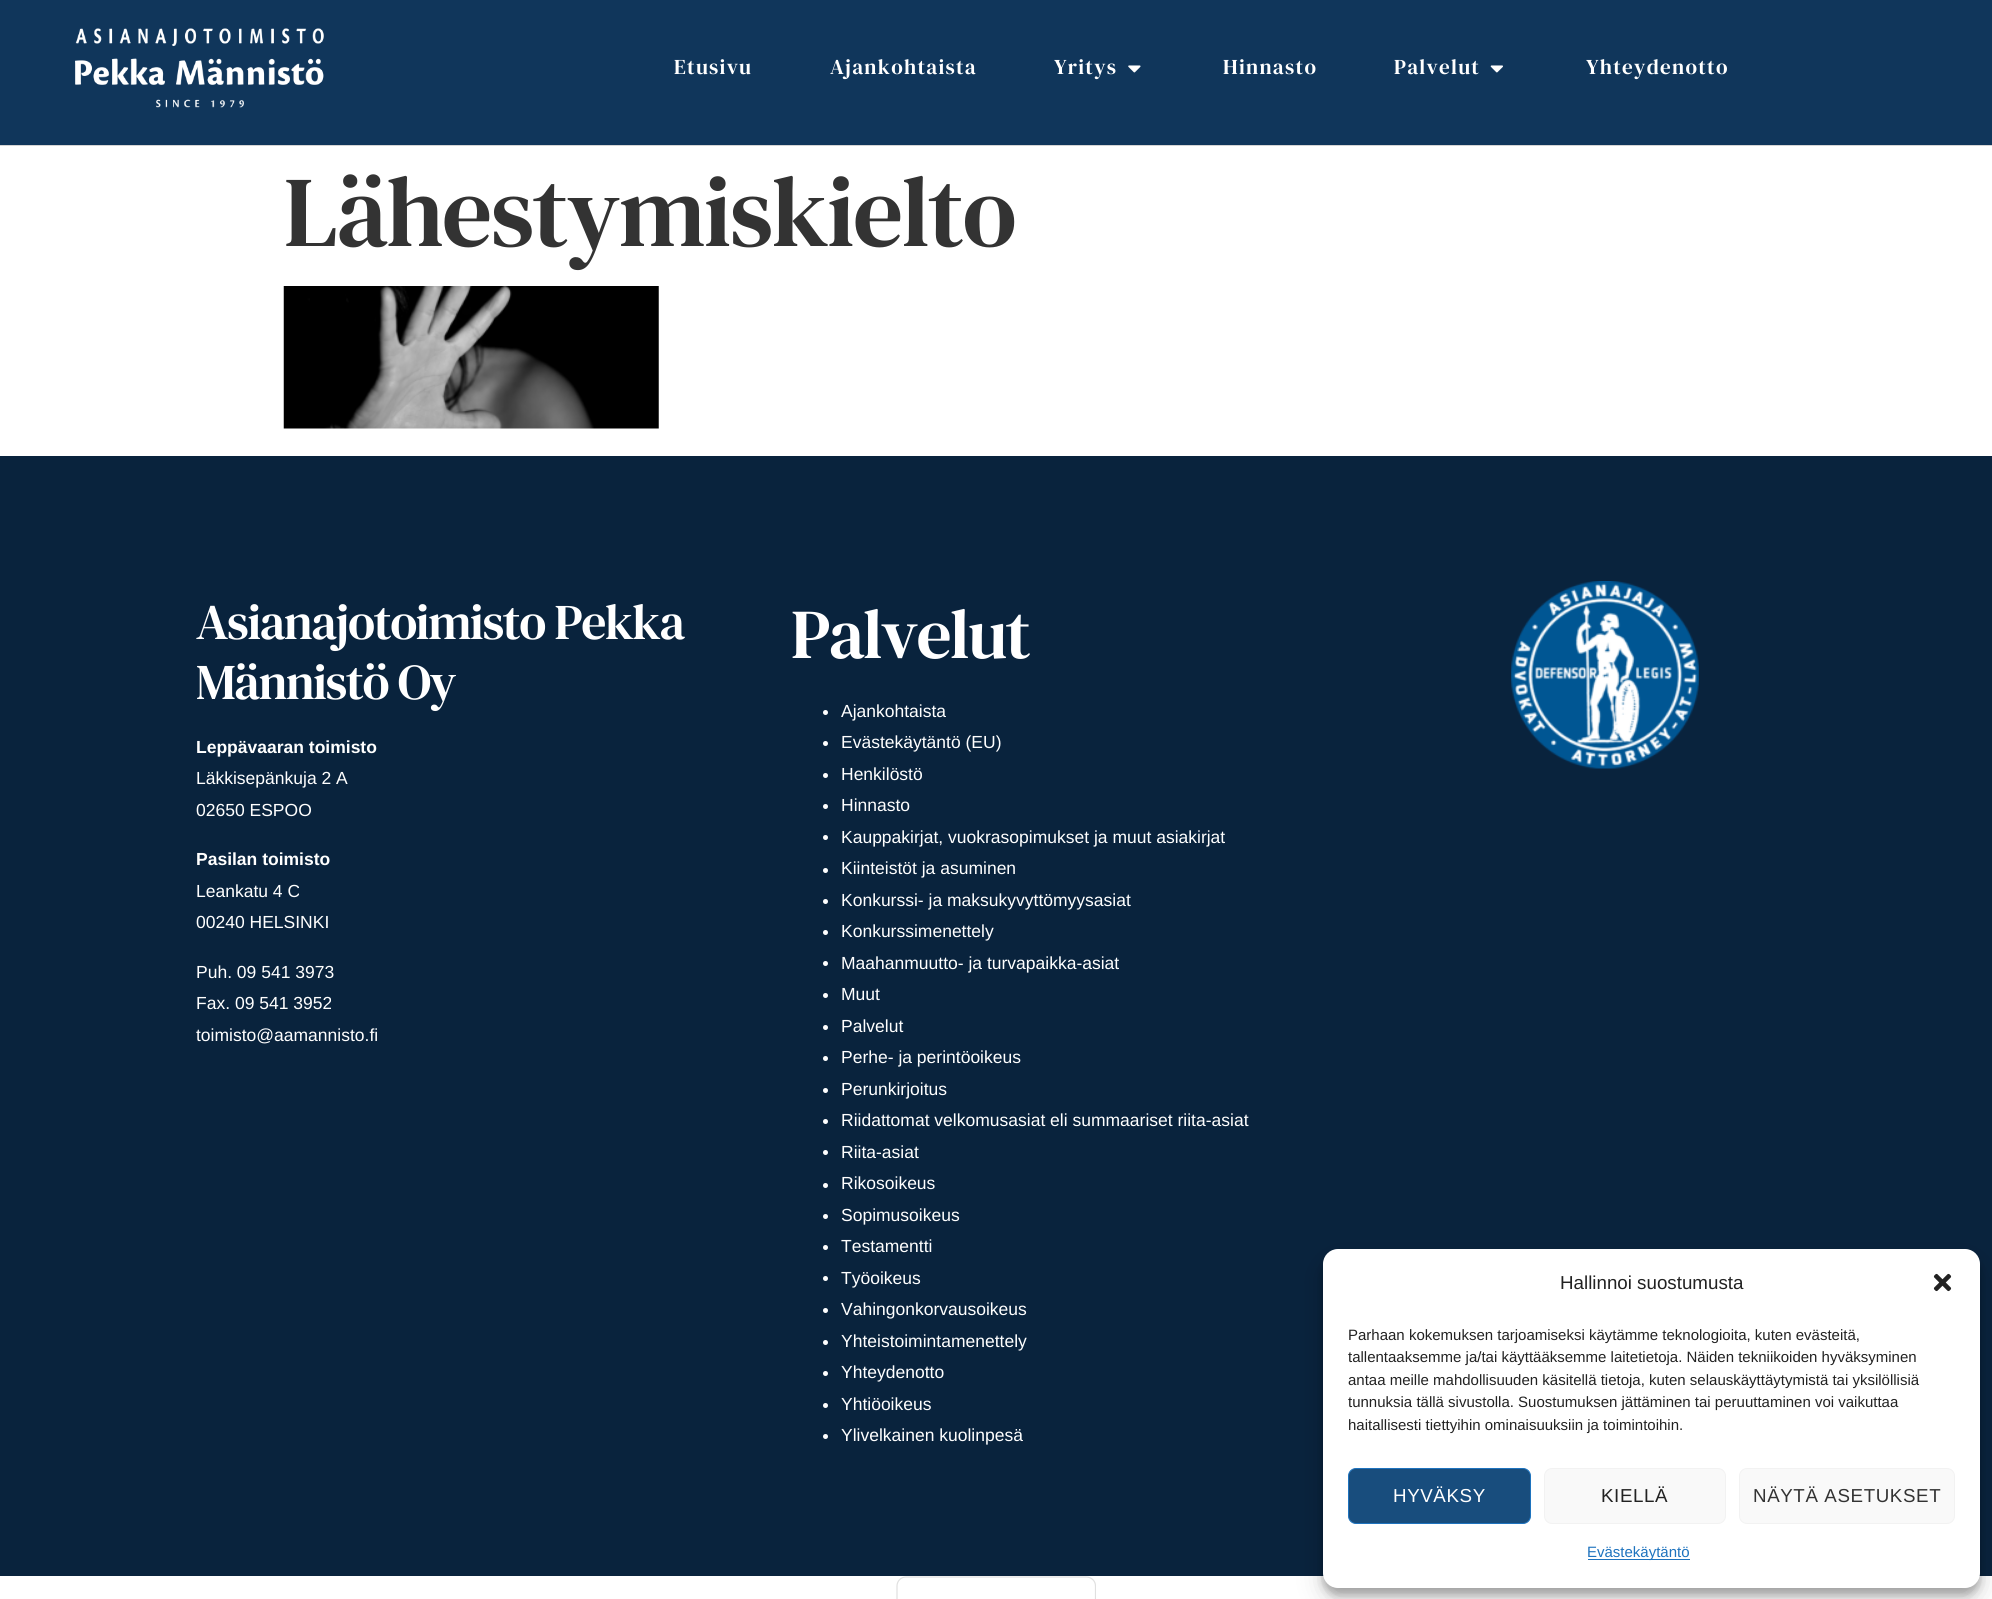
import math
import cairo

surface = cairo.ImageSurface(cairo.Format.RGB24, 1992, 1599)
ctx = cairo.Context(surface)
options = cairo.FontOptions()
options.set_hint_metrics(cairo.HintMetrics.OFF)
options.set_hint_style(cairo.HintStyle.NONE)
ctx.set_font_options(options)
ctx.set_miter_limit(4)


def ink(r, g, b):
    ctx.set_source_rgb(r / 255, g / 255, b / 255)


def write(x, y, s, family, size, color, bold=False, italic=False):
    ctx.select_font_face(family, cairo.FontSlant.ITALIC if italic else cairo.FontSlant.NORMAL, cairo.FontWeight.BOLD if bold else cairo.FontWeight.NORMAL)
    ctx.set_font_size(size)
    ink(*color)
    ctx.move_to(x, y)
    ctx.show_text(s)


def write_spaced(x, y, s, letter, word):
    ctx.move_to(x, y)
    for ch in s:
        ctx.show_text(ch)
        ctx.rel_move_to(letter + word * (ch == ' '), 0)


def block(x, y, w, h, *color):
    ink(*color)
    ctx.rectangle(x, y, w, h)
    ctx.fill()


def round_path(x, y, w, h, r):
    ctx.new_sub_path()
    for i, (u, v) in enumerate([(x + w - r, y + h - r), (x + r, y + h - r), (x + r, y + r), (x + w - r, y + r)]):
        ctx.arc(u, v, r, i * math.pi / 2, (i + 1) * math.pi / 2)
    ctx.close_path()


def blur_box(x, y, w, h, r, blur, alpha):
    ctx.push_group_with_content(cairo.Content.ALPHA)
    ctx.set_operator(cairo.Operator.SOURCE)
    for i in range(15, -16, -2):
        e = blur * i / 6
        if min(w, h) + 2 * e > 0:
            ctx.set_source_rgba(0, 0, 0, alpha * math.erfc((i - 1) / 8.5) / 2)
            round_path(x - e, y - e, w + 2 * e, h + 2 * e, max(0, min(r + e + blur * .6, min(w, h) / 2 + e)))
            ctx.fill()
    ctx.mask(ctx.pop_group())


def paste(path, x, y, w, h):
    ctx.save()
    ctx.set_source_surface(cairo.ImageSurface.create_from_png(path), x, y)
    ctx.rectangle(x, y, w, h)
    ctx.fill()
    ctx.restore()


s1 = dict(family="Liberation Sans", size=17.5, color=(255, 255, 255), bold=True)
s2 = dict(family="Liberation Sans", size=17.5, color=(255, 255, 255))
s3 = dict(family="Liberation Sans", size=18.75, color=(34, 34, 34))
s4 = dict(family="Liberation Sans", size=15, color=(34, 34, 34))
s5 = dict(family="Liberation Sans", size=15, color=(30, 115, 190))

ink(255, 255, 255)
ctx.paint()
block(0, 0, 1992, 145, 16, 54, 91)
block(0, 145, 1992, 1, 212, 212, 212)
paste("pic1.png", 75, 28, 249, 80)
ctx.select_font_face("DM Serif Text")
ctx.set_font_size(21.25)
ink(255, 255, 255)
write_spaced(674, 74, "Etusivu", 1.25, 0)
write_spaced(830, 74, "Ajankohtaista", 1.25, 0)
write_spaced(1054, 74, "Yritys", 1.25, 0)
paste("pic2.png", 1128, 65, 13, 8)
write_spaced(1223, 74, "Hinnasto", 1.25, 0)
write_spaced(1394, 74, "Palvelut", 1.25, 0)
paste("pic3.png", 1490, 65, 13, 8)
write_spaced(1586, 74, "Yhteydenotto", 1.25, 0)
ctx.set_font_size(100)
ink(51, 51, 51)
write_spaced(284, 246, "Lähestymiskielto", -1.6, 0)
paste("pic4.png", 283, 286, 376, 143)
block(0, 456, 1992, 1120, 9, 35, 61)
ctx.set_font_size(50)
ink(255, 255, 255)
write_spaced(196, 639, "Asianajotoimisto Pekka", -1.4, 0)
write_spaced(196, 699, "Männistö Oy", -1.4, 0)
write(196, 753, "Leppävaaran toimisto", **s1)
write(196, 784, "Läkkisepänkuja 2 A", **s2)
write(196, 816, "02650 ESPOO", **s2)
write(196, 865, "Pasilan toimisto", **s1)
write(196, 897, "Leankatu 4 C", **s2)
write(196, 928, "00240 HELSINKI", **s2)
write(196, 978, "Puh. 09 541 3973", **s2)
write(196, 1009, "Fax. 09 541 3952", **s2)
write(196, 1041, "toimisto@aamannisto.fi", **s2)
ctx.select_font_face("DM Serif Text")
ctx.set_font_size(70)
write_spaced(791, 658, "Palvelut", -1.6, 0)
ctx.new_path()
ctx.arc(825.5, 712.5, 2.5, 0, 2 * math.pi)
ctx.fill()
write(841, 717, "Ajankohtaista", **s2)
ctx.new_path()
ctx.arc(825.5, 743.5, 2.5, 0, 2 * math.pi)
ctx.fill()
write(841, 748, "Evästekäytäntö (EU)", **s2)
ctx.new_path()
ctx.arc(825.5, 775.5, 2.5, 0, 2 * math.pi)
ctx.fill()
write(841, 780, "Henkilöstö", **s2)
ctx.new_path()
ctx.arc(825.5, 806.5, 2.5, 0, 2 * math.pi)
ctx.fill()
write(841, 811, "Hinnasto", **s2)
ctx.new_path()
ctx.arc(825.5, 837.5, 2.5, 0, 2 * math.pi)
ctx.fill()
write(841, 843, "Kauppakirjat, vuokrasopimukset ja muut asiakirjat", **s2)
ctx.new_path()
ctx.arc(825.5, 870.5, 2.5, 0, 2 * math.pi)
ctx.fill()
write(841, 874, "Kiinteistöt ja asuminen", **s2)
ctx.new_path()
ctx.arc(825.5, 901.5, 2.5, 0, 2 * math.pi)
ctx.fill()
write(841, 906, "Konkurssi- ja maksukyvyttömyysasiat", **s2)
ctx.new_path()
ctx.arc(825.5, 932.5, 2.5, 0, 2 * math.pi)
ctx.fill()
write(841, 937, "Konkurssimenettely", **s2)
ctx.new_path()
ctx.arc(825.5, 963.5, 2.5, 0, 2 * math.pi)
ctx.fill()
write(841, 969, "Maahanmuutto- ja turvapaikka-asiat", **s2)
ctx.new_path()
ctx.arc(825.5, 995.5, 2.5, 0, 2 * math.pi)
ctx.fill()
write(841, 1000, "Muut", **s2)
ctx.new_path()
ctx.arc(825.5, 1027.5, 2.5, 0, 2 * math.pi)
ctx.fill()
write(841, 1032, "Palvelut", **s2)
ctx.new_path()
ctx.arc(825.5, 1058.5, 2.5, 0, 2 * math.pi)
ctx.fill()
write(841, 1063, "Perhe- ja perintöoikeus", **s2)
ctx.new_path()
ctx.arc(825.5, 1090.5, 2.5, 0, 2 * math.pi)
ctx.fill()
write(841, 1095, "Perunkirjoitus", **s2)
ctx.new_path()
ctx.arc(825.5, 1121.5, 2.5, 0, 2 * math.pi)
ctx.fill()
write(841, 1126, "Riidattomat velkomusasiat eli summaariset riita-asiat", **s2)
ctx.new_path()
ctx.arc(825.5, 1152.5, 2.5, 0, 2 * math.pi)
ctx.fill()
write(841, 1158, "Riita-asiat", **s2)
ctx.new_path()
ctx.arc(825.5, 1185.5, 2.5, 0, 2 * math.pi)
ctx.fill()
write(841, 1189, "Rikosoikeus", **s2)
ctx.new_path()
ctx.arc(825.5, 1216.5, 2.5, 0, 2 * math.pi)
ctx.fill()
write(841, 1221, "Sopimusoikeus", **s2)
ctx.new_path()
ctx.arc(825.5, 1247.5, 2.5, 0, 2 * math.pi)
ctx.fill()
write(841, 1252, "Testamentti", **s2)
ctx.new_path()
ctx.arc(825.5, 1278.5, 2.5, 0, 2 * math.pi)
ctx.fill()
write(841, 1284, "Työoikeus", **s2)
ctx.new_path()
ctx.arc(825.5, 1310.5, 2.5, 0, 2 * math.pi)
ctx.fill()
write(841, 1315, "Vahingonkorvausoikeus", **s2)
ctx.new_path()
ctx.arc(825.5, 1342.5, 2.5, 0, 2 * math.pi)
ctx.fill()
write(841, 1347, "Yhteistoimintamenettely", **s2)
ctx.new_path()
ctx.arc(825.5, 1373.5, 2.5, 0, 2 * math.pi)
ctx.fill()
write(841, 1378, "Yhteydenotto", **s2)
ctx.new_path()
ctx.arc(825.5, 1405.5, 2.5, 0, 2 * math.pi)
ctx.fill()
write(841, 1410, "Yhtiöoikeus", **s2)
ctx.new_path()
ctx.arc(825.5, 1436.5, 2.5, 0, 2 * math.pi)
ctx.fill()
write(841, 1441, "Ylivelkainen kuolinpesä", **s2)
paste("pic5.png", 1511, 581, 188, 188)
ink(0, 0, 0)
blur_box(1323, 1256, 657, 339, 15, 4, 0.23)
blur_box(1323, 1261, 657, 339, 15, 12.5, 0.19)
ink(255, 255, 255)
round_path(1323, 1249, 657, 339, 15)
ctx.fill()
write(1560, 1289, "Hallinnoi suostumusta", **s3)
paste("pic6.png", 1933, 1273, 19, 19)
write(1348, 1340, "Parhaan kokemuksen tarjoamiseksi käytämme teknologioita, kuten evästeitä,", **s4)
write(1348, 1362, "tallentaaksemme ja/tai käyttääksemme laitetietoja. Näiden tekniikoiden hyväksyminen", **s4)
write(1348, 1385, "antaa meille mahdollisuuden käsitellä tietoja, kuten selauskäyttäytymistä tai yksilöllisiä", **s4)
write(1348, 1407, "tunnuksia tällä sivustolla. Suostumuksen jättäminen tai peruuttaminen voi vaikuttaa", **s4)
write(1348, 1430, "haitallisesti tiettyihin ominaisuuksiin ja toimintoihin.", **s4)
ink(24, 77, 125)
round_path(1348.5, 1468.5, 182, 55, 7.5)
ctx.fill_preserve()
ink(30, 115, 190)
ctx.set_line_width(1)
ctx.stroke()
ctx.set_font_size(18.75)
ink(255, 255, 255)
write_spaced(1393, 1502, "HYVÄKSY", 0.6, 0)
ink(249, 249, 249)
round_path(1544.5, 1468.5, 181, 55, 7.5)
ctx.fill_preserve()
ink(242, 242, 242)
ctx.stroke()
ink(34, 34, 34)
write_spaced(1601, 1502, "KIELLÄ", 0.6, 0)
ink(249, 249, 249)
round_path(1739.5, 1468.5, 215, 55, 7.5)
ctx.fill_preserve()
ink(242, 242, 242)
ctx.stroke()
ink(51, 51, 51)
write_spaced(1753, 1502, "NÄYTÄ ASETUKSET", 0.6, 0)
block(1588, 1559, 102, 1, 30, 115, 190)
write(1587, 1557, "Evästekäytäntö", **s5)
ctx.save()
ctx.rectangle(896, 1576, 200, 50)
ctx.clip()
ctx.new_path()
ctx.move_to(906, 1577)
ctx.line_to(1086, 1577)
ctx.curve_to(1091.5, 1577, 1095.5, 1581, 1095.5, 1586)
ctx.line_to(1095.5, 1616)
ctx.curve_to(1095.5, 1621.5, 1091.5, 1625.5, 1086, 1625.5)
ctx.line_to(906, 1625.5)
ctx.curve_to(901, 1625.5, 897, 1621.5, 897, 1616)
ctx.line_to(897, 1586)
ctx.curve_to(897, 1581, 901, 1577, 906, 1577)
ctx.close_path()
ink(224, 224, 224)
ctx.set_line_width(1.2)
ctx.stroke()
ctx.restore()
surface.write_to_png("screenshot.png")
